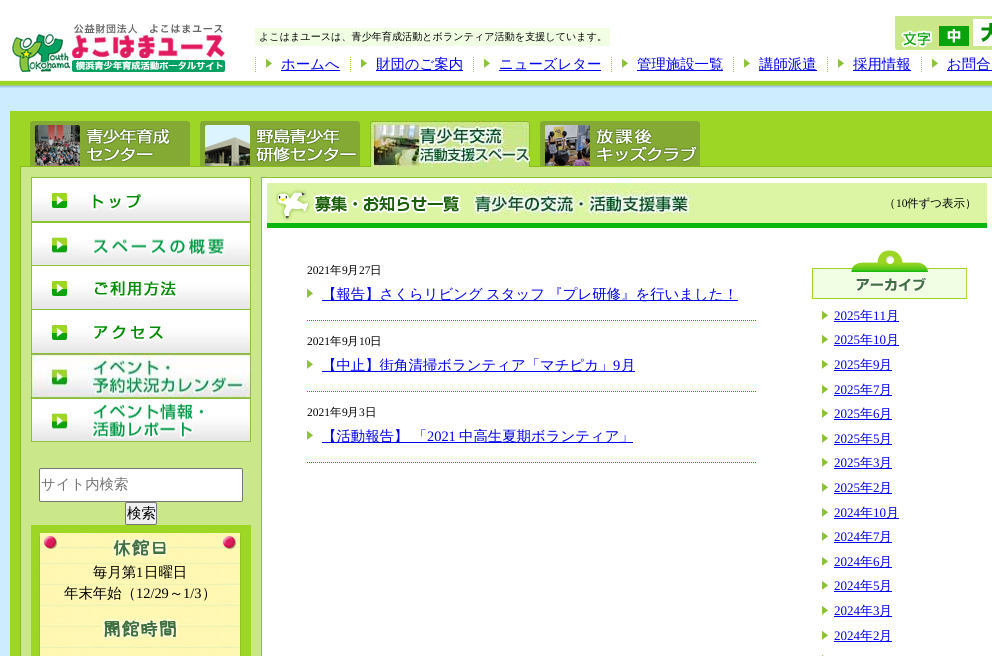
import math
import cairo

surface = cairo.ImageSurface(cairo.Format.RGB24, 992, 656)
ctx = cairo.Context(surface)
options = cairo.FontOptions()
options.set_hint_metrics(cairo.HintMetrics.OFF)
options.set_hint_style(cairo.HintStyle.NONE)
ctx.set_font_options(options)
ctx.set_miter_limit(4)


def ink(r, g, b):
    ctx.set_source_rgb(r / 255, g / 255, b / 255)


def write(x, y, s, family, size, color, bold=False, italic=False):
    ctx.select_font_face(family, cairo.FontSlant.ITALIC if italic else cairo.FontSlant.NORMAL, cairo.FontWeight.BOLD if bold else cairo.FontWeight.NORMAL)
    ctx.set_font_size(size)
    ink(*color)
    ctx.move_to(x, y)
    ctx.show_text(s)


def write_spaced(x, y, s, letter, word):
    ctx.move_to(x, y)
    for ch in s:
        ctx.show_text(ch)
        ctx.rel_move_to(letter + word * (ch == ' '), 0)


def block(x, y, w, h, *color):
    ink(*color)
    ctx.rectangle(x, y, w, h)
    ctx.fill()


def round_path(x, y, w, h, r):
    ctx.new_sub_path()
    for i, (u, v) in enumerate([(x + w - r, y + h - r), (x + r, y + h - r), (x + r, y + r), (x + w - r, y + r)]):
        ctx.arc(u, v, r, i * math.pi / 2, (i + 1) * math.pi / 2)
    ctx.close_path()


def paste(path, x, y, w, h):
    ctx.save()
    ctx.set_source_surface(cairo.ImageSurface.create_from_png(path), x, y)
    ctx.rectangle(x, y, w, h)
    ctx.fill()
    ctx.restore()


s1 = dict(family="WenQuanYi Zen Hei Medium", size=10.1, color=(0, 0, 0))
s2 = dict(family="WenQuanYi Zen Hei Medium", size=14.4, color=(0, 0, 238))
s3 = dict(family="WenQuanYi Zen Hei Medium", size=14.4, color=(117, 117, 117))
s4 = dict(family="WenQuanYi Zen Hei Medium", size=14.4, color=(0, 0, 0))
s5 = dict(family="Liberation Serif", size=14.4, color=(0, 0, 0))
s6 = dict(family="WenQuanYi Zen Hei Medium", size=11.5, color=(0, 0, 0))
s7 = dict(family="Liberation Serif", size=11.5, color=(0, 0, 0))
s8 = dict(family="Liberation Serif", size=14.4, color=(0, 0, 238))
s9 = dict(family="Liberation Serif", size=13, color=(0, 0, 238))
s10 = dict(family="WenQuanYi Zen Hei Medium", size=13, color=(0, 0, 238))

ink(255, 255, 255)
ctx.paint()
paste("pic1.png", 0, 80, 992, 8)
paste("pic2.png", 12, 24, 213, 48)
block(255, 28, 355, 18, 241, 254, 228)
write(259, 40, "よこはまユースは、青少年育成活動とボランティア活動を支援しています。", **s1)
paste("pic3.png", 895, 16, 97, 34)
paste("pic4.png", 939, 26, 30, 20)
paste("pic5.png", 973, 19, 19, 27)
ctx.new_path()
ctx.move_to(255.5, 57)
ctx.line_to(255.5, 73)
ink(158, 199, 33)
ctx.set_line_width(1)
ctx.set_dash([1, 1])
ctx.stroke()
paste("pic6.png", 266, 59, 6, 9)
block(281, 70, 59, 1, 0, 0, 238)
write(281, 69, "ホームへ", **s2)
ctx.new_path()
ctx.move_to(350.5, 57)
ctx.line_to(350.5, 73)
ink(158, 199, 33)
ctx.stroke()
paste("pic6.png", 361, 59, 6, 9)
block(376, 70, 87, 1, 0, 0, 238)
write(376, 69, "財団のご案内", **s2)
ctx.new_path()
ctx.move_to(473.5, 57)
ctx.line_to(473.5, 73)
ink(158, 199, 33)
ctx.stroke()
paste("pic6.png", 484, 59, 6, 9)
block(499, 70, 102, 1, 0, 0, 238)
write(499, 69, "ニューズレター", **s2)
ctx.new_path()
ctx.move_to(611.5, 57)
ctx.line_to(611.5, 73)
ink(158, 199, 33)
ctx.stroke()
paste("pic6.png", 622, 59, 6, 9)
block(637, 70, 86, 1, 0, 0, 238)
write(637, 69, "管理施設一覧", **s2)
ctx.new_path()
ctx.move_to(733.5, 57)
ctx.line_to(733.5, 73)
ink(158, 199, 33)
ctx.stroke()
paste("pic6.png", 744, 59, 6, 9)
block(759, 70, 58, 1, 0, 0, 238)
write(759, 69, "講師派遣", **s2)
ctx.new_path()
ctx.move_to(827.5, 57)
ctx.line_to(827.5, 73)
ink(158, 199, 33)
ctx.stroke()
paste("pic6.png", 838, 59, 6, 9)
block(853, 70, 58, 1, 0, 0, 238)
write(853, 69, "採用情報", **s2)
ctx.new_path()
ctx.move_to(921.5, 57)
ctx.line_to(921.5, 73)
ink(158, 199, 33)
ctx.stroke()
paste("pic6.png", 932, 59, 6, 9)
block(947, 70, 45, 1, 0, 0, 238)
write(947, 69, "お問合", **s2)
block(0, 88, 992, 568, 205, 236, 255)
block(10, 111, 982, 545, 157, 214, 37)
block(20, 166, 972, 1, 137, 187, 28)
paste("pic7.png", 30, 121, 160, 46)
paste("pic8.png", 200, 121, 160, 46)
paste("pic9.png", 370, 121, 160, 46)
paste("pic10.png", 540, 121, 160, 46)
block(21, 167, 971, 489, 202, 231, 138)
block(20, 167, 1, 489, 137, 187, 28)
paste("pic11.png", 31, 177, 220, 45)
paste("pic12.png", 31, 222, 220, 44)
paste("pic13.png", 31, 266, 220, 44)
paste("pic14.png", 31, 310, 220, 44)
paste("pic15.png", 31, 354, 220, 44)
paste("pic16.png", 31, 398, 220, 44)
ink(255, 255, 255)
round_path(39.5, 468.5, 203, 33, 1.5)
ctx.fill_preserve()
ink(118, 118, 118)
ctx.set_dash([])
ctx.stroke()
write(41, 489, "サイト内検索", **s3)
ink(239, 239, 239)
round_path(125.5, 502.5, 31, 22, 1.5)
ctx.fill_preserve()
ink(118, 118, 118)
ctx.stroke()
write(127, 518, "検索", **s4)
block(31, 525, 220, 131, 157, 214, 37)
paste("pic17.png", 39, 549, 202, 107)
paste("pic18.png", 39, 533, 202, 16)
paste("pic19.png", 112, 538, 56, 20)
write(93, 577, "毎月第", **s4)
write(136, 577, "1", **s5)
write(144, 577, "日曜日", **s4)
write(64, 598, "年末年始（", **s4)
write(136, 598, "12/29", **s5)
write(169, 598, "～", **s4)
write(183, 598, "1/3", **s5)
write(202, 598, "）", **s4)
paste("pic20.png", 102, 619, 76, 20)
ink(255, 255, 255)
ctx.rectangle(261.5, 177.5, 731, 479)
ctx.fill_preserve()
ink(140, 194, 57)
ctx.stroke()
block(267, 183, 720, 40, 220, 245, 164)
block(267, 223, 720, 5, 10, 183, 13)
paste("pic21.png", 275, 189, 191, 34)
paste("pic22.png", 473, 183, 224, 33)
write(884, 207, "（", **s6)
write(896, 207, "10", **s7)
write(907, 207, "件ずつ表示）", **s6)
ctx.new_path()
ctx.move_to(307, 320.5)
ctx.line_to(757, 320.5)
ink(13, 163, 14)
ctx.set_dash([1, 1])
ctx.stroke()
write(307, 274, "2021", **s7)
write(330, 274, "年", **s6)
write(342, 274, "9", **s7)
write(347, 274, "月", **s6)
write(359, 274, "27", **s7)
write(370, 274, "日", **s6)
paste("pic6.png", 307, 289, 6, 9)
block(322, 300, 416, 1, 0, 0, 238)
ctx.set_font_size(14.4)
write_spaced(322, 299, "【報告】さくらリビング スタッフ 『プレ研修』を行いました！", 0, -1)
ctx.new_path()
ctx.move_to(307, 391.5)
ctx.line_to(757, 391.5)
ink(13, 163, 14)
ctx.stroke()
write(307, 345, "2021", **s7)
write(330, 345, "年", **s6)
write(342, 345, "9", **s7)
write(347, 345, "月", **s6)
write(359, 345, "10", **s7)
write(370, 345, "日", **s6)
paste("pic6.png", 307, 360, 6, 9)
block(322, 371, 313, 1, 0, 0, 238)
write(322, 370, "【中止】街角清掃ボランティア「マチピカ」", **s2)
write(613, 370, "9", **s8)
write(621, 370, "月", **s2)
ctx.new_path()
ctx.move_to(307, 462.5)
ctx.line_to(757, 462.5)
ink(13, 163, 14)
ctx.stroke()
write(307, 416, "2021", **s7)
write(330, 416, "年", **s6)
write(342, 416, "9", **s7)
write(347, 416, "月", **s6)
write(359, 416, "3", **s7)
write(365, 416, "日", **s6)
paste("pic6.png", 307, 431, 6, 9)
block(322, 442, 311, 1, 0, 0, 238)
write(322, 441, "【活動報告】 「", **s2)
write(427, 441, "2021", **s8)
write(459, 441, "中高生夏期ボランティア」", **s2)
paste("pic23.png", 812, 250, 155, 49)
paste("pic6.png", 822, 311, 6, 9)
write(834, 320, "2025", **s9)
block(834, 321, 65, 1, 0, 0, 238)
write(860, 320, "年", **s10)
write(873, 320, "11", **s9)
write(886, 320, "月", **s10)
paste("pic6.png", 822, 335, 6, 9)
write(834, 344, "2025", **s9)
block(834, 345, 65, 1, 0, 0, 238)
write(860, 344, "年", **s10)
write(873, 344, "10", **s9)
write(886, 344, "月", **s10)
paste("pic6.png", 822, 360, 6, 9)
write(834, 369, "2025", **s9)
block(834, 370, 58, 1, 0, 0, 238)
write(860, 369, "年", **s10)
write(873, 369, "9", **s9)
write(879, 369, "月", **s10)
paste("pic6.png", 822, 385, 6, 9)
write(834, 394, "2025", **s9)
block(834, 395, 58, 1, 0, 0, 238)
write(860, 394, "年", **s10)
write(873, 394, "7", **s9)
write(879, 394, "月", **s10)
paste("pic6.png", 822, 409, 6, 9)
write(834, 418, "2025", **s9)
block(834, 419, 58, 1, 0, 0, 238)
write(860, 418, "年", **s10)
write(873, 418, "6", **s9)
write(879, 418, "月", **s10)
paste("pic6.png", 822, 434, 6, 9)
write(834, 443, "2025", **s9)
block(834, 444, 58, 1, 0, 0, 238)
write(860, 443, "年", **s10)
write(873, 443, "5", **s9)
write(879, 443, "月", **s10)
paste("pic6.png", 822, 458, 6, 9)
write(834, 467, "2025", **s9)
block(834, 468, 58, 1, 0, 0, 238)
write(860, 467, "年", **s10)
write(873, 467, "3", **s9)
write(879, 467, "月", **s10)
paste("pic6.png", 822, 483, 6, 9)
write(834, 492, "2025", **s9)
block(834, 493, 58, 1, 0, 0, 238)
write(860, 492, "年", **s10)
write(873, 492, "2", **s9)
write(879, 492, "月", **s10)
paste("pic6.png", 822, 508, 6, 9)
write(834, 517, "2024", **s9)
block(834, 518, 65, 1, 0, 0, 238)
write(860, 517, "年", **s10)
write(873, 517, "10", **s9)
write(886, 517, "月", **s10)
paste("pic6.png", 822, 532, 6, 9)
write(834, 541, "2024", **s9)
block(834, 542, 58, 1, 0, 0, 238)
write(860, 541, "年", **s10)
write(873, 541, "7", **s9)
write(879, 541, "月", **s10)
paste("pic6.png", 822, 557, 6, 9)
write(834, 566, "2024", **s9)
block(834, 567, 58, 1, 0, 0, 238)
write(860, 566, "年", **s10)
write(873, 566, "6", **s9)
write(879, 566, "月", **s10)
paste("pic6.png", 822, 581, 6, 9)
write(834, 590, "2024", **s9)
block(834, 591, 58, 1, 0, 0, 238)
write(860, 590, "年", **s10)
write(873, 590, "5", **s9)
write(879, 590, "月", **s10)
paste("pic6.png", 822, 606, 6, 9)
write(834, 615, "2024", **s9)
block(834, 616, 58, 1, 0, 0, 238)
write(860, 615, "年", **s10)
write(873, 615, "3", **s9)
write(879, 615, "月", **s10)
paste("pic6.png", 822, 631, 6, 9)
write(834, 640, "2024", **s9)
block(834, 641, 58, 1, 0, 0, 238)
write(860, 640, "年", **s10)
write(873, 640, "2", **s9)
write(879, 640, "月", **s10)
paste("pic24.png", 822, 655, 2, 1)
surface.write_to_png("screenshot.png")
